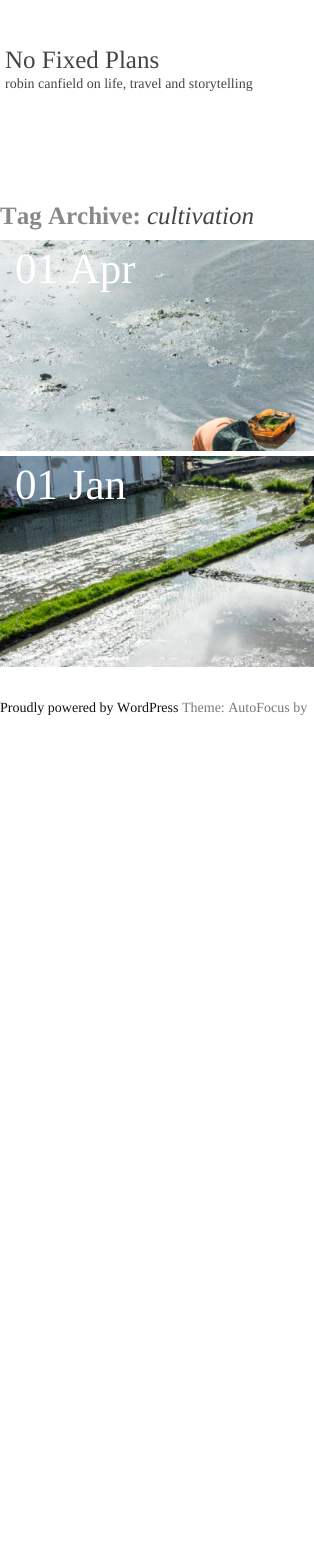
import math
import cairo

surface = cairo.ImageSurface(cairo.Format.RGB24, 314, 1564)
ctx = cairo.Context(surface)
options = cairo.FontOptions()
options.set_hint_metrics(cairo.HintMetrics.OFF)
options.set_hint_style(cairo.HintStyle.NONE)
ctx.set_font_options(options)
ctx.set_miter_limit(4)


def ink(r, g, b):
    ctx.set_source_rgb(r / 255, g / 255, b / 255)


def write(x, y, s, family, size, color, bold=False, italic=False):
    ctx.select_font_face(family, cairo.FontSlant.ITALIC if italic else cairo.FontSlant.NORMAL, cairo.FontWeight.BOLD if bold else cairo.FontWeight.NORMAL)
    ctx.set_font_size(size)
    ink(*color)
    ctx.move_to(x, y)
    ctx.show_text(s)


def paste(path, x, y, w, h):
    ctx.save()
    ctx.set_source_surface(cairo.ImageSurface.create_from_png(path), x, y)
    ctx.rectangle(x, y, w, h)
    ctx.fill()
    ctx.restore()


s1 = dict(family="Liberation Serif", size=25, color=(68, 68, 68))
s2 = dict(family="Liberation Serif", size=14, color=(68, 68, 68))
s3 = dict(family="Liberation Serif", size=25, color=(136, 136, 136), bold=True)
s4 = dict(family="Liberation Serif", size=25, color=(68, 68, 68), italic=True)
s5 = dict(family="Liberation Serif", size=43, color=(255, 255, 255))
s6 = dict(family="Liberation Serif", size=14, color=(17, 17, 17))
s7 = dict(family="Liberation Serif", size=14, color=(119, 119, 119))

ink(255, 255, 255)
ctx.paint()
write(5, 68, "No Fixed Plans", **s1)
write(5, 88, "robin canfield on life, travel and storytelling", **s2)
write(0, 224, "Tag Archive:", **s3)
write(147, 224, "cultivation", **s4)
paste("pic1.png", 0, 240, 314, 211)
write(15, 283, "01 Apr", **s5)
paste("pic2.png", 0, 456, 314, 211)
write(15, 499, "01 Jan", **s5)
write(0, 712, "Proudly powered by WordPress", **s6)
write(182, 712, "Theme: AutoFocus by", **s7)
surface.write_to_png("screenshot.png")
